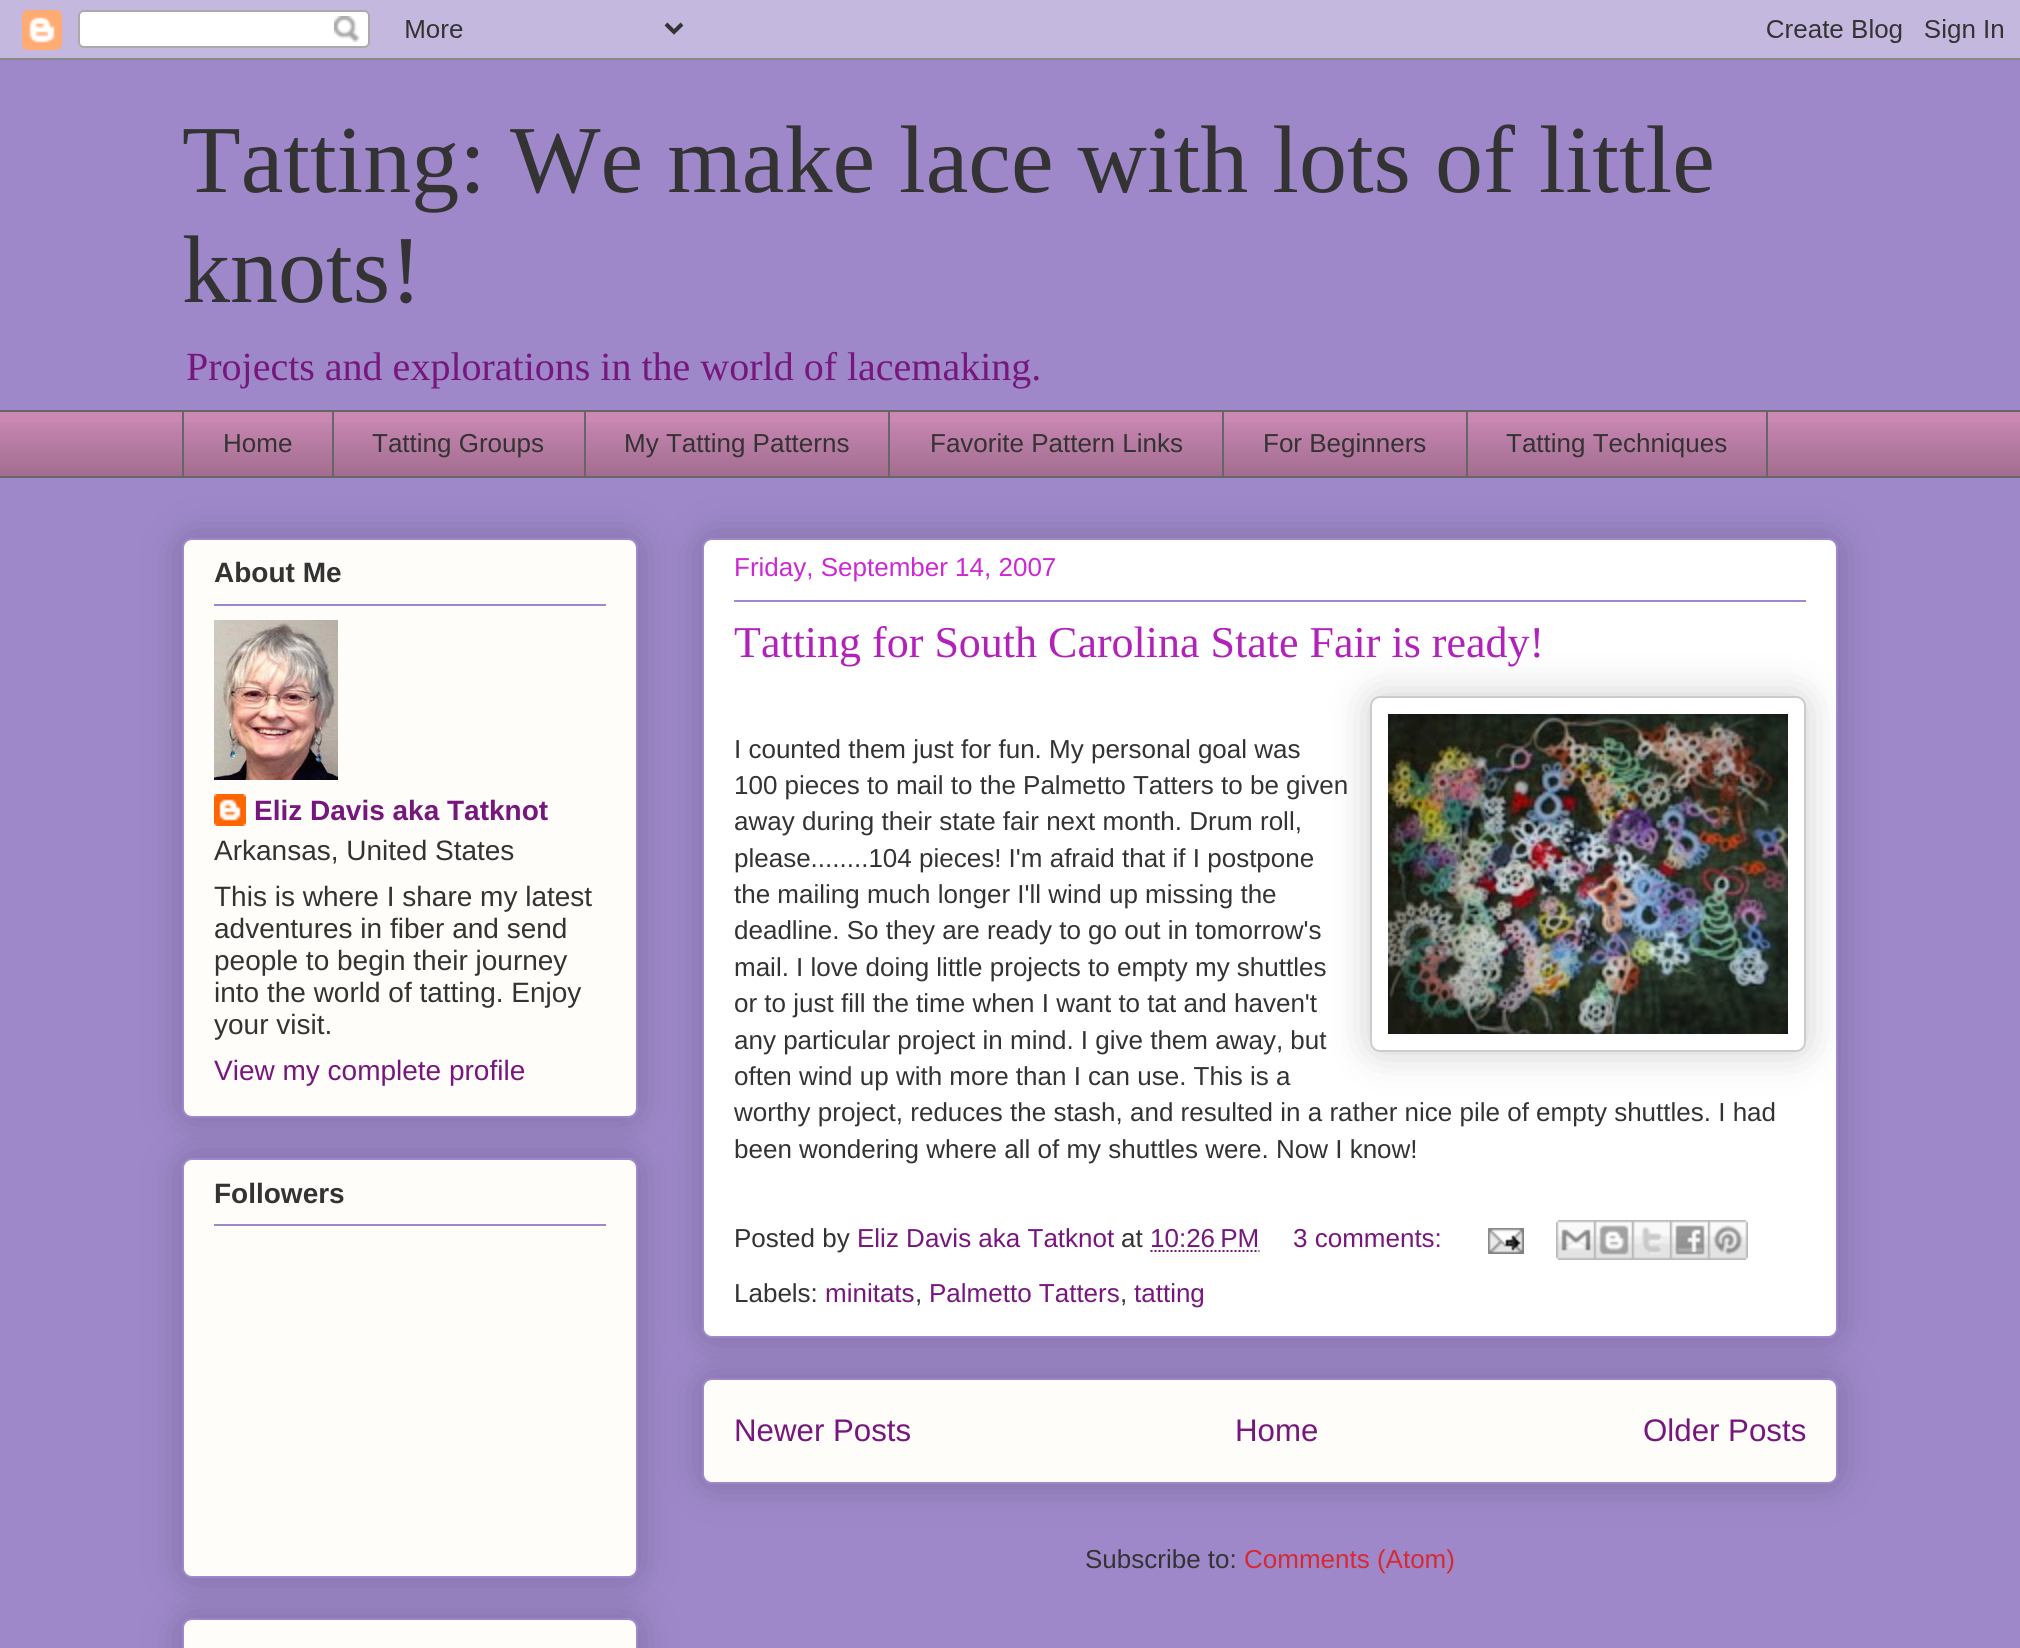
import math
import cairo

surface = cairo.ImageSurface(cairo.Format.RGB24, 2020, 1648)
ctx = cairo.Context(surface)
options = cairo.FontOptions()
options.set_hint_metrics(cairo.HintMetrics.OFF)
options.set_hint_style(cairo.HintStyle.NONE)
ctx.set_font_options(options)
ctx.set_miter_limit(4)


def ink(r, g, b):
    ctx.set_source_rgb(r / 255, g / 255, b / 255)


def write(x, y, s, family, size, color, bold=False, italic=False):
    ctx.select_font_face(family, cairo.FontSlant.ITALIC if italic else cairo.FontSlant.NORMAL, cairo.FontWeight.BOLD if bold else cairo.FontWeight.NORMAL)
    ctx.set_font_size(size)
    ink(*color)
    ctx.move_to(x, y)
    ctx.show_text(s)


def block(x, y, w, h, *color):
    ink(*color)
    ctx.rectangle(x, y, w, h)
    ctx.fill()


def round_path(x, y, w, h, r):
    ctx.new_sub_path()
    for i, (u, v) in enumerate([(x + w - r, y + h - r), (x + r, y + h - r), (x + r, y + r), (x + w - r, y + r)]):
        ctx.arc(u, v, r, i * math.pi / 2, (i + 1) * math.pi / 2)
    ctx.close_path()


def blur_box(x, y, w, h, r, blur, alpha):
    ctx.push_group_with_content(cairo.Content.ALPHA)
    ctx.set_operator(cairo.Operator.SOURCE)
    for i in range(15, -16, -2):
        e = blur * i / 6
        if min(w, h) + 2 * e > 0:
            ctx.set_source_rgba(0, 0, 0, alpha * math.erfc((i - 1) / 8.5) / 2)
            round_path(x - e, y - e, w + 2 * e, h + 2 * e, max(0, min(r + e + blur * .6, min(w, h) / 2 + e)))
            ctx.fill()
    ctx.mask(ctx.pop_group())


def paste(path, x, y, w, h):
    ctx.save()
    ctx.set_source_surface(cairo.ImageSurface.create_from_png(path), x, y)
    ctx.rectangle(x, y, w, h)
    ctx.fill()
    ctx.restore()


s1 = dict(family="Liberation Serif", size=96, color=(51, 51, 51))
s2 = dict(family="Liberation Serif", size=40, color=(119, 23, 125))
s3 = dict(family="Liberation Sans", size=26, color=(51, 51, 51))
s4 = dict(family="Liberation Sans", size=28, color=(51, 51, 51), bold=True)
s5 = dict(family="Liberation Sans", size=28, color=(119, 23, 125), bold=True)
s6 = dict(family="Liberation Sans", size=28, color=(51, 51, 51))
s7 = dict(family="Liberation Sans", size=28, color=(119, 23, 125))
s8 = dict(family="Liberation Sans", size=26, color=(204, 41, 213))
s9 = dict(family="Liberation Serif", size=44, color=(178, 34, 187))
s10 = dict(family="Liberation Sans", size=26, color=(119, 23, 125))
s11 = dict(family="Liberation Sans", size=31.25, color=(119, 23, 125))
s12 = dict(family="Liberation Sans", size=26, color=(213, 42, 51))

ink(158, 136, 202)
ctx.paint()
paste("pic1.png", 0, 0, 2020, 60)
write(182, 192, "Tatting: We make lace with lots of little", **s1)
write(182, 302, "knots!", **s1)
write(186, 380, "Projects and explorations in the world of lacemaking.", **s2)
block(0, 412, 2020, 64, 202, 136, 179)
paste("pic2.png", 0, 422, 2020, 54)
block(0, 410, 2020, 2, 102, 102, 102)
block(182, 410, 2, 68, 102, 102, 102)
write(223, 452, "Home", **s3)
block(332, 410, 2, 68, 102, 102, 102)
write(372, 452, "Tatting Groups", **s3)
block(584, 410, 2, 68, 102, 102, 102)
write(624, 452, "My Tatting Patterns", **s3)
block(888, 410, 2, 68, 102, 102, 102)
write(930, 452, "Favorite Pattern Links", **s3)
block(1222, 410, 2, 68, 102, 102, 102)
write(1263, 452, "For Beginners", **s3)
ctx.rectangle(1467, 411, 300, 66)
ink(102, 102, 102)
ctx.stroke()
write(1506, 452, "Tatting Techniques", **s3)
block(0, 476, 2020, 2, 102, 102, 102)
ink(0, 0, 0)
blur_box(182, 538, 456, 580, 10, 20, 0.2)
ink(254, 253, 250)
round_path(183, 539, 454, 578, 9)
ctx.fill_preserve()
ink(158, 136, 202)
ctx.stroke()
write(214, 582, "About Me", **s4)
block(214, 604, 392, 2, 158, 136, 202)
paste("pic3.png", 214, 620, 124, 160)
paste("pic4.png", 214, 794, 32, 32)
write(254, 820, "Eliz Davis aka Tatknot", **s5)
write(214, 860, "Arkansas, United States", **s6)
write(214, 906, "This is where I share my latest", **s6)
write(214, 938, "adventures in fiber and send", **s6)
write(214, 970, "people to begin their journey", **s6)
write(214, 1002, "into the world of tatting. Enjoy", **s6)
write(214, 1034, "your visit.", **s6)
write(214, 1080, "View my complete profile", **s7)
ink(0, 0, 0)
blur_box(182, 1618, 456, 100, 10, 20, 0.2)
ink(254, 253, 250)
round_path(183, 1619, 454, 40, 9)
ctx.fill_preserve()
ink(158, 136, 202)
ctx.stroke()
ink(0, 0, 0)
blur_box(182, 1158, 456, 420, 10, 20, 0.2)
ink(254, 253, 250)
round_path(183, 1159, 454, 418, 9)
ctx.fill_preserve()
ink(158, 136, 202)
ctx.stroke()
write(214, 1203, "Followers", **s4)
block(214, 1224, 392, 2, 158, 136, 202)
ink(0, 0, 0)
blur_box(702, 1378, 1136, 106, 10, 20, 0.2)
ink(254, 253, 250)
round_path(703, 1379, 1134, 104, 9)
ctx.fill_preserve()
ink(158, 136, 202)
ctx.stroke()
ink(0, 0, 0)
blur_box(702, 538, 1136, 800, 10, 20, 0.2)
ink(255, 255, 255)
round_path(703, 539, 1134, 798, 9)
ctx.fill_preserve()
ink(158, 136, 202)
ctx.stroke()
write(734, 576, "Friday, September 14, 2007", **s8)
block(734, 600, 1072, 2, 158, 136, 202)
write(734, 657, "Tatting for South Carolina State Fair is ready!", **s9)
write(734, 758, "I counted them just for fun. My personal goal was", **s3)
ink(0, 0, 0)
blur_box(1370, 696, 436, 356, 10, 20, 0.2)
ink(255, 255, 255)
round_path(1371, 697, 434, 354, 9)
ctx.fill_preserve()
ink(204, 204, 204)
ctx.stroke()
paste("pic5.png", 1388, 714, 400, 320)
write(734, 794, "100 pieces to mail to the Palmetto Tatters to be given", **s3)
write(734, 830, "away during their state fair next month. Drum roll,", **s3)
write(734, 867, "please........104 pieces! I'm afraid that if I postpone", **s3)
write(734, 903, "the mailing much longer I'll wind up missing the", **s3)
write(734, 939, "deadline. So they are ready to go out in tomorrow's", **s3)
write(734, 976, "mail. I love doing little projects to empty my shuttles", **s3)
write(734, 1012, "or to just fill the time when I want to tat and haven't", **s3)
write(734, 1049, "any particular project in mind. I give them away, but", **s3)
write(734, 1085, "often wind up with more than I can use. This is a", **s3)
write(734, 1121, "worthy project, reduces the stash, and resulted in a rather nice pile of empty shuttles. I had", **s3)
write(734, 1158, "been wondering where all of my shuttles were. Now I know!", **s3)
write(734, 1247, "Posted by", **s3)
write(857, 1247, "Eliz Davis aka Tatknot", **s10)
write(1121, 1247, "at", **s3)
write(1150, 1247, "10:26 PM", **s10)
ctx.new_path()
ctx.move_to(1150.5, 1251)
ctx.line_to(1259.5, 1251)
ctx.set_dash([2, 2])
ctx.stroke()
write(1293, 1247, "3 comments:", **s10)
paste("pic6.png", 1488, 1228, 36, 26)
paste("pic7.png", 1556, 1220, 38, 40)
paste("pic8.png", 1594, 1220, 38, 40)
paste("pic9.png", 1632, 1220, 38, 40)
paste("pic10.png", 1670, 1220, 38, 40)
paste("pic11.png", 1708, 1220, 40, 40)
write(734, 1302, "Labels:", **s3)
write(825, 1302, "minitats", **s10)
write(915, 1302, ",", **s3)
write(929, 1302, "Palmetto Tatters", **s10)
write(1120, 1302, ",", **s3)
write(1134, 1302, "tatting", **s10)
write(734, 1441, "Newer Posts", **s11)
write(1235, 1441, "Home", **s11)
write(1643, 1441, "Older Posts", **s11)
write(1085, 1568, "Subscribe to:", **s3)
write(1244, 1568, "Comments (Atom)", **s12)
surface.write_to_png("screenshot.png")
